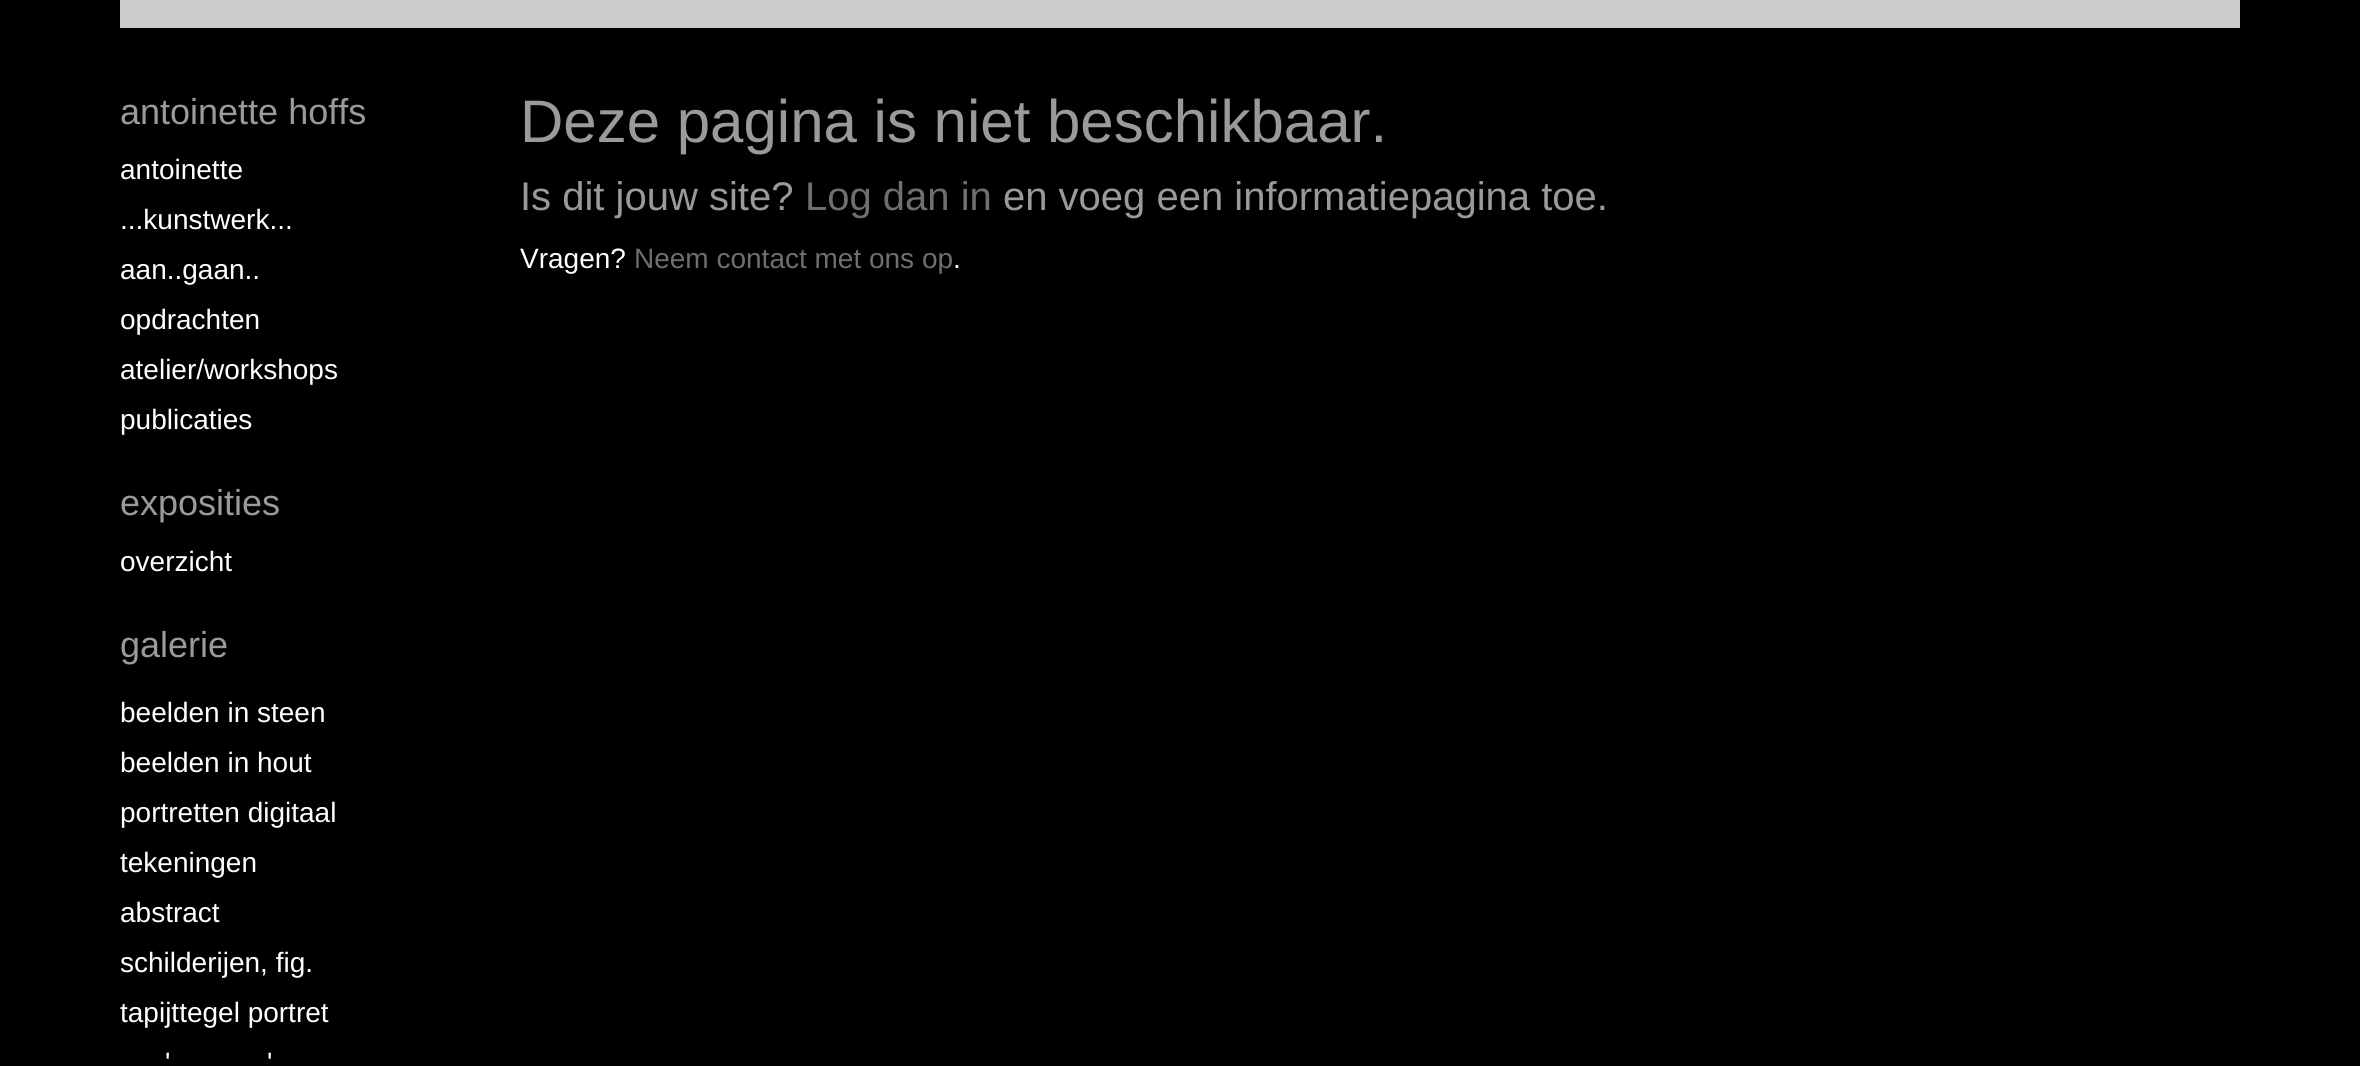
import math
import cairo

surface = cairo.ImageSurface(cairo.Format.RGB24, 2360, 1066)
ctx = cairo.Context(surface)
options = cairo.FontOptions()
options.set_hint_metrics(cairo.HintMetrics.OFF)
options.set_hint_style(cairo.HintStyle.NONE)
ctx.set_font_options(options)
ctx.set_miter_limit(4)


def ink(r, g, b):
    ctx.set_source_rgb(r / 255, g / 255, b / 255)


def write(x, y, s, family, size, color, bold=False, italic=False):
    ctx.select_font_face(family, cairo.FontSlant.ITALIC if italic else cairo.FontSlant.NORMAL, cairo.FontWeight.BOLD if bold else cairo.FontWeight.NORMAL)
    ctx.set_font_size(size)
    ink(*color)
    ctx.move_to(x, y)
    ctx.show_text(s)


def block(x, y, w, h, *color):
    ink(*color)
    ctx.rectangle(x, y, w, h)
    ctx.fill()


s1 = dict(family="Liberation Sans", size=36, color=(154, 154, 154))
s2 = dict(family="Liberation Sans", size=28, color=(255, 255, 255))
s3 = dict(family="Liberation Sans", size=60, color=(154, 154, 154))
s4 = dict(family="Liberation Sans", size=40, color=(154, 154, 154))
s5 = dict(family="Liberation Sans", size=40, color=(111, 111, 111))
s6 = dict(family="Liberation Sans", size=28, color=(111, 111, 111))

ink(0, 0, 0)
ctx.paint()
block(120, 0, 2120, 28, 204, 204, 204)
write(120, 124, "antoinette hoffs", **s1)
write(120, 179, "antoinette", **s2)
write(120, 229, "...kunstwerk...", **s2)
write(120, 279, "aan..gaan..", **s2)
write(120, 329, "opdrachten", **s2)
write(120, 379, "atelier/workshops", **s2)
write(120, 429, "publicaties", **s2)
write(120, 515, "exposities", **s1)
write(120, 571, "overzicht", **s2)
write(120, 657, "galerie", **s1)
write(120, 722, "beelden in steen", **s2)
write(120, 772, "beelden in hout", **s2)
write(120, 822, "portretten digitaal", **s2)
write(120, 872, "tekeningen", **s2)
write(120, 922, "abstract", **s2)
write(120, 972, "schilderijen, fig.", **s2)
write(120, 1022, "tapijttegel portret", **s2)
write(165, 1072, "'", **s2)
write(267, 1072, "'", **s2)
write(520, 142, "Deze pagina is niet beschikbaar.", **s3)
write(520, 210, "Is dit jouw site?", **s4)
write(805, 210, "Log dan in", **s5)
write(1003, 210, "en voeg een informatiepagina toe.", **s4)
write(520, 268, "Vragen?", **s2)
write(634, 268, "Neem contact met ons op", **s6)
write(953, 268, ".", **s2)
surface.write_to_png("screenshot.png")
